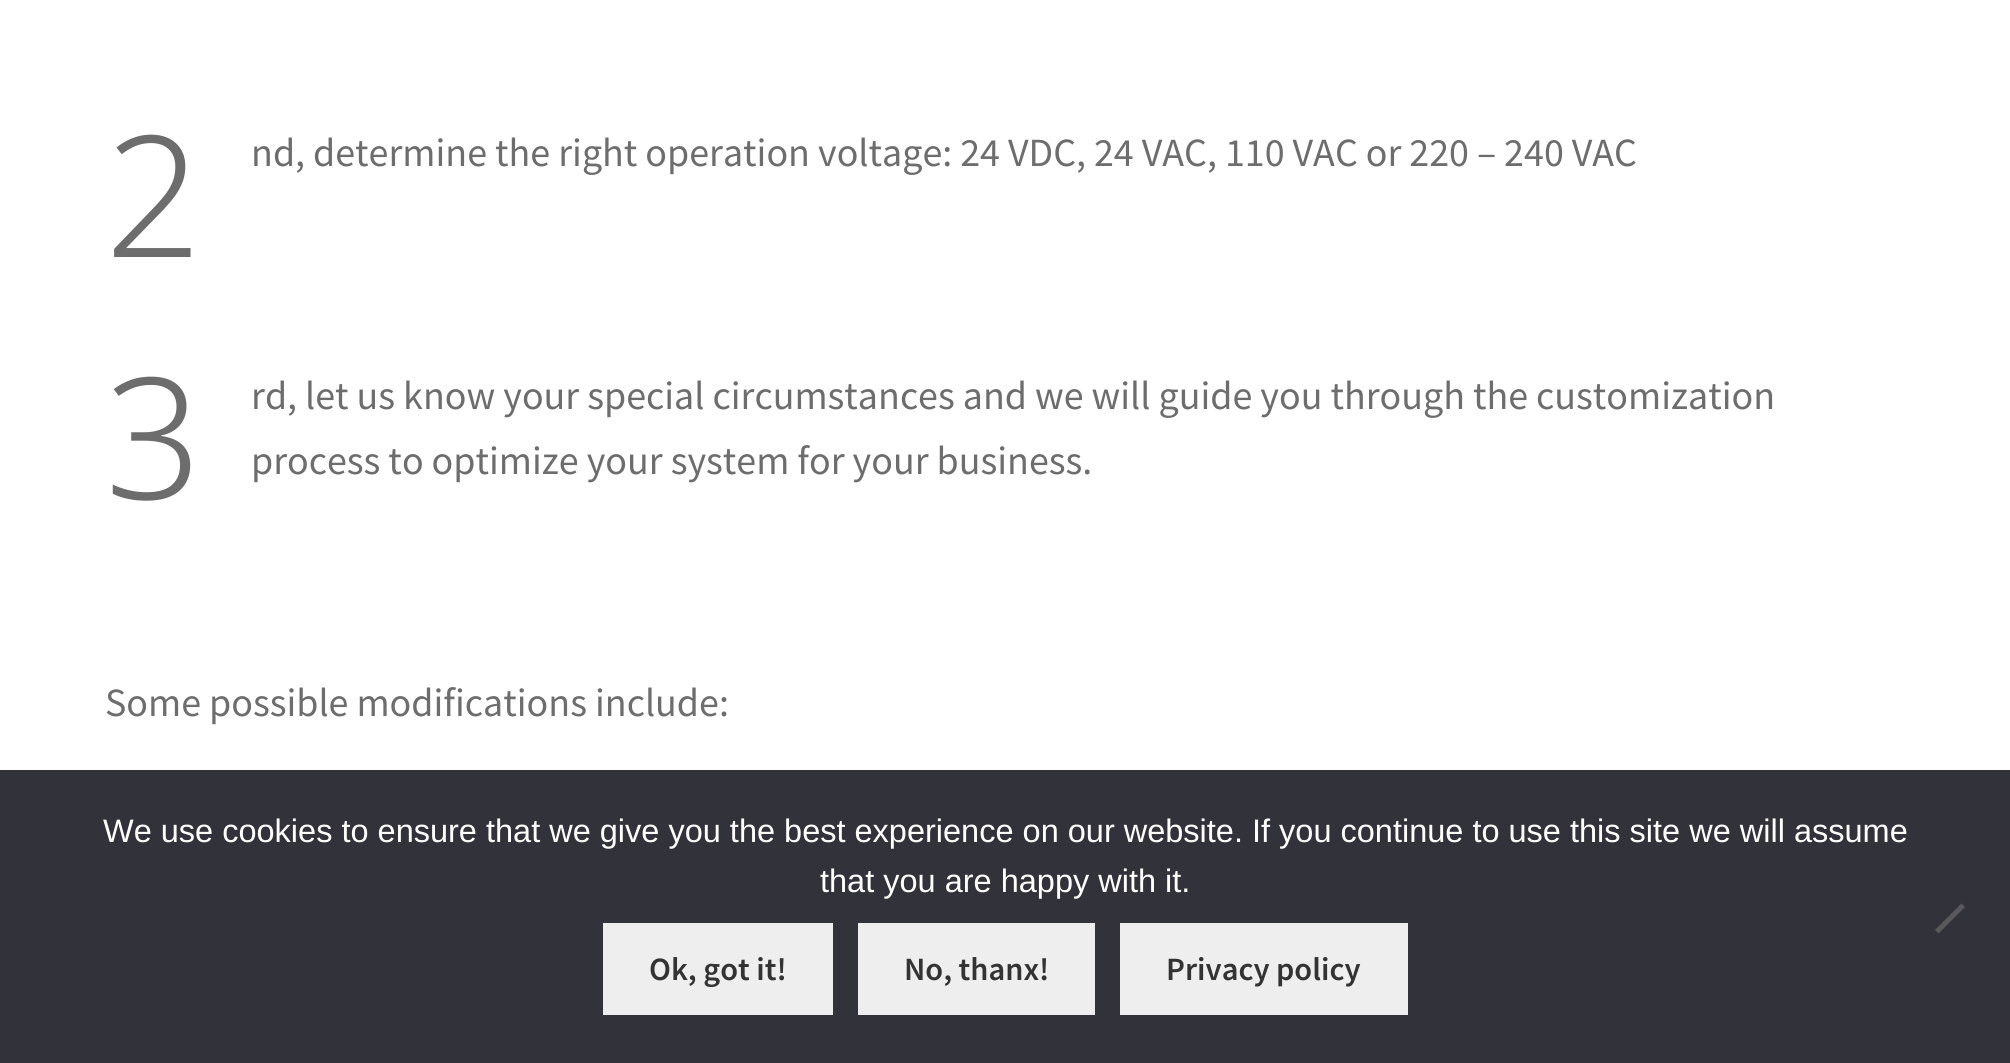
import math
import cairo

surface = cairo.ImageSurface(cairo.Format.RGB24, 2010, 1063)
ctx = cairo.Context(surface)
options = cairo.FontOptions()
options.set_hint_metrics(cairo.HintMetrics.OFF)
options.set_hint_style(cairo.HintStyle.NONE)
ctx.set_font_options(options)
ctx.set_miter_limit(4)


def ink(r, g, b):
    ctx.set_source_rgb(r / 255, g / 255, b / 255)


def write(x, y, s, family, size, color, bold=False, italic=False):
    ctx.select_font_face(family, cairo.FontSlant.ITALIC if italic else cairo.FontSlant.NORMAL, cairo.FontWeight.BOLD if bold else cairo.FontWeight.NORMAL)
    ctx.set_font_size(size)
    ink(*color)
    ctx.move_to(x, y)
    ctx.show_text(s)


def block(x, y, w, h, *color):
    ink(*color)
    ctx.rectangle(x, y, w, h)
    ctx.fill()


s1 = dict(family="Noto Sans Light", size=169, color=(109, 109, 109))
s2 = dict(family="Source Sans Pro", size=40, color=(109, 109, 109))
s3 = dict(family="Liberation Sans", size=32.5, color=(255, 255, 255))
s4 = dict(family="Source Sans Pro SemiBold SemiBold", size=32.5, color=(51, 51, 51))

ink(255, 255, 255)
ctx.paint()
write(105, 257, "2", **s1)
write(251, 166, "nd, determine the right operation voltage: 24 VDC, 24 VAC, 110 VAC or 220 – 240 VAC", **s2)
write(105, 499, "3", **s1)
write(251, 409, "rd, let us know your special circumstances and we will guide you through the customization", **s2)
write(251, 474, "process to optimize your system for your business.", **s2)
write(105, 716, "Some possible modifications include:", **s2)
block(0, 770, 2010, 293, 50, 50, 58)
write(103, 842, "We use cookies to ensure that we give you the best experience on our website. If you continue to use this site we will assume", **s3)
write(820, 892, "that you are happy with it.", **s3)
ink(89, 89, 93)
ctx.new_path()
ctx.move_to(1961.5, 903.5)
ctx.line_to(1965, 907)
ctx.line_to(1938.5, 933.5)
ctx.line_to(1935, 930)
ctx.close_path()
ctx.fill()
block(603, 923, 230, 92, 238, 238, 238)
write(649, 980, "Ok, got it!", **s4)
block(858, 923, 237, 92, 238, 238, 238)
write(904, 980, "No, thanx!", **s4)
block(1120, 923, 288, 92, 238, 238, 238)
write(1166, 980, "Privacy policy", **s4)
surface.write_to_png("screenshot.png")
